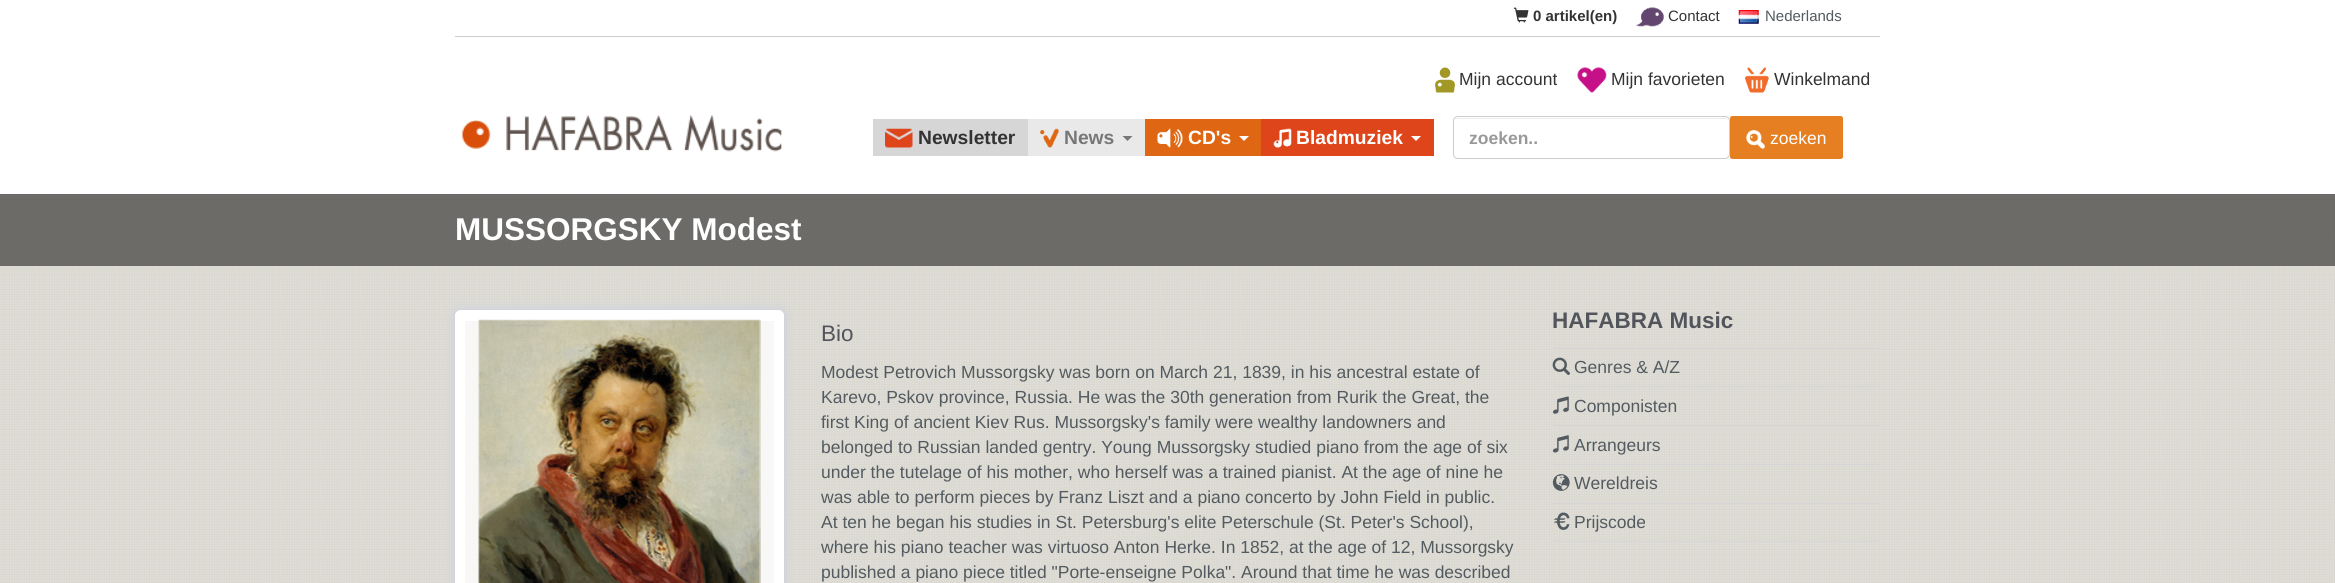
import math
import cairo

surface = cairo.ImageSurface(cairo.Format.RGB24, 2335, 583)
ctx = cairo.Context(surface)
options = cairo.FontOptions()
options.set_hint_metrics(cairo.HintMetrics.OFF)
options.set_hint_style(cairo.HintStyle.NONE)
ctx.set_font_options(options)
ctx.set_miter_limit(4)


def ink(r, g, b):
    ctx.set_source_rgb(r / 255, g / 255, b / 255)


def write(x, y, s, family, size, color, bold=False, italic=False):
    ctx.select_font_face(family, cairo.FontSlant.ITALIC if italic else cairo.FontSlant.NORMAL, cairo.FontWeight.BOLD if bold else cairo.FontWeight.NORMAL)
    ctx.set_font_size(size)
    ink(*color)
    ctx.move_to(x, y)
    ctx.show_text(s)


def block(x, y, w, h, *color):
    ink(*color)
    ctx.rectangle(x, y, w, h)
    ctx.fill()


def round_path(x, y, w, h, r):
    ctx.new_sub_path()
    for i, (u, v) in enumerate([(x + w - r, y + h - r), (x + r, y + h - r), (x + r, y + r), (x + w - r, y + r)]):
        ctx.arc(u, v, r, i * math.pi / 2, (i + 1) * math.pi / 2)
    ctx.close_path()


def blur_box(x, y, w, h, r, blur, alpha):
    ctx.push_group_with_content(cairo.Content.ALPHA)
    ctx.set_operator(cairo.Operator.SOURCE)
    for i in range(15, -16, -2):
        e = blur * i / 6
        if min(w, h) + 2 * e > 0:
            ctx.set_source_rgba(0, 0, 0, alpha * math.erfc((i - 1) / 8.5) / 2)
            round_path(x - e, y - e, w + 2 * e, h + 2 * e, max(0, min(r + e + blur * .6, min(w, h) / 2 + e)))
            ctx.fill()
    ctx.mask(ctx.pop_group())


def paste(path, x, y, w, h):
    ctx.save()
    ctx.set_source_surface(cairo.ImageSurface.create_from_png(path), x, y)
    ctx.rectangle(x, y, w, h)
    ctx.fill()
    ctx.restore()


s1 = dict(family="Liberation Sans", size=15, color=(51, 51, 51), bold=True)
s2 = dict(family="Liberation Sans", size=15, color=(51, 51, 51))
s3 = dict(family="Liberation Sans", size=15, color=(83, 91, 96))
s4 = dict(family="Liberation Sans", size=17.5, color=(51, 51, 51))
s5 = dict(family="Liberation Sans", size=19.25, color=(51, 51, 51), bold=True)
s6 = dict(family="Liberation Sans", size=19.25, color=(119, 119, 119), bold=True)
s7 = dict(family="Liberation Sans", size=19.25, color=(255, 255, 255), bold=True)
s8 = dict(family="Liberation Sans", size=17.5, color=(153, 153, 153), bold=True)
s9 = dict(family="Liberation Sans", size=17.5, color=(255, 255, 255))
s10 = dict(family="Liberation Sans", size=31.5, color=(255, 255, 255), bold=True)
s11 = dict(family="Liberation Sans", size=22.5, color=(83, 85, 92))
s12 = dict(family="Liberation Sans", size=17.5, color=(83, 91, 96))
s13 = dict(family="Liberation Sans", size=22.5, color=(83, 85, 92), bold=True)

ink(217, 215, 206)
ctx.paint()
paste("pic1.png", 0, 194, 2334, 389)
block(0, 0, 2335, 194, 255, 255, 255)
block(455, 36, 1425, 1, 204, 204, 204)
paste("pic2.png", 1513, 7, 16, 16)
write(1533, 21, "0 artikel(en)", **s1)
paste("pic3.png", 1636, 7, 28, 20)
write(1668, 21, "Contact", **s2)
paste("pic4.png", 1738, 10, 21, 14)
write(1765, 21, "Nederlands", **s3)
paste("pic5.png", 1435, 67, 20, 26)
write(1459, 85, "Mijn account", **s4)
paste("pic6.png", 1577, 67, 30, 26)
write(1611, 85, "Mijn favorieten", **s4)
paste("pic7.png", 1745, 67, 24, 26)
write(1774, 85, "Winkelmand", **s4)
paste("pic8.png", 462, 115, 320, 37)
block(873, 119, 155, 37, 214, 214, 214)
paste("pic9.png", 885, 128, 28, 20)
write(918, 144, "Newsletter", **s5)
block(1028, 119, 117, 37, 233, 233, 233)
paste("pic10.png", 1040, 128, 19, 20)
write(1064, 144, "News", **s6)
ctx.new_path()
ctx.move_to(1122.5, 136)
ctx.line_to(1132.5, 136)
ctx.line_to(1127.5, 141)
ctx.close_path()
ctx.fill()
block(1145, 119, 116, 37, 223, 103, 19)
paste("pic11.png", 1157, 128, 26, 20)
write(1188, 144, "CD's", **s7)
ctx.new_path()
ctx.move_to(1239, 136)
ctx.line_to(1249, 136)
ctx.line_to(1244, 141)
ctx.close_path()
ctx.fill()
block(1261, 119, 173, 37, 222, 69, 26)
paste("pic12.png", 1273, 128, 19, 20)
write(1296, 144, "Bladmuziek", **s7)
ctx.new_path()
ctx.move_to(1411, 136)
ctx.line_to(1421, 136)
ctx.line_to(1416, 141)
ctx.close_path()
ctx.fill()
ink(236, 236, 236)
ctx.new_path()
ctx.move_to(1458, 119)
ctx.line_to(1725, 119)
ctx.curve_to(1727, 119, 1729, 120, 1729, 122)
ctx.curve_to(1729, 120, 1727, 118, 1725, 118)
ctx.line_to(1458, 118)
ctx.curve_to(1456, 118, 1455, 119, 1454, 120)
ctx.curve_to(1455, 119, 1456, 119, 1458, 119)
ctx.close_path()
ctx.fill()
round_path(1453.5, 116.5, 276, 42, 4.5)
ink(204, 204, 204)
ctx.set_line_width(1)
ctx.stroke()
write(1469, 144, "zoeken..", **s8)
ink(230, 126, 34)
round_path(1730.5, 116.5, 112, 42, 2)
ctx.fill_preserve()
ctx.stroke()
paste("pic13.png", 1746, 130, 19, 19)
write(1770, 144, "zoeken", **s9)
ctx.set_source_rgba(0.133, 0.133, 0.133, 0.6)
ctx.rectangle(0, 194, 2335, 72)
ctx.fill()
write(455, 240, "MUSSORGSKY Modest", **s10)
ctx.save()
ctx.set_fill_rule(cairo.FillRule.EVEN_ODD)
ctx.new_path()
ctx.move_to(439, 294)
ctx.line_to(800, 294)
ctx.line_to(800, 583)
ctx.line_to(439, 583)
ctx.close_path()
ctx.move_to(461, 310)
ctx.line_to(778, 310)
ctx.curve_to(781.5, 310, 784, 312.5, 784, 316)
ctx.line_to(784, 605)
ctx.curve_to(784, 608.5, 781.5, 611, 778, 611)
ctx.line_to(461, 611)
ctx.curve_to(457.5, 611, 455, 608.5, 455, 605)
ctx.line_to(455, 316)
ctx.curve_to(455, 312.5, 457.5, 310, 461, 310)
ctx.close_path()
ctx.clip()
ink(200, 207, 230)
blur_box(455, 310, 329, 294, 6, 5, 1)
ctx.restore()
ctx.set_source_rgba(1, 1, 1, 0.8)
round_path(455, 310, 329, 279, 6)
ctx.fill()
block(465, 320, 309, 1, 255, 255, 255)
round_path(460, 315, 319, 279, 1)
ctx.set_line_width(10)
ctx.stroke()
paste("pic14.png", 478, 319, 283, 264)
write(821, 341, "Bio", **s11)
write(821, 378, "Modest Petrovich Mussorgsky was born on March 21, 1839, in his ancestral estate of", **s12)
write(821, 403, "Karevo, Pskov province, Russia. He was the 30th generation from Rurik the Great, the", **s12)
write(821, 428, "first King of ancient Kiev Rus. Mussorgsky's family were wealthy landowners and", **s12)
write(821, 453, "belonged to Russian landed gentry. Young Mussorgsky studied piano from the age of six", **s12)
write(821, 478, "under the tutelage of his mother, who herself was a trained pianist. At the age of nine he", **s12)
write(821, 503, "was able to perform pieces by Franz Liszt and a piano concerto by John Field in public.", **s12)
write(821, 528, "At ten he began his studies in St. Petersburg's elite Peterschule (St. Peter's School),", **s12)
write(821, 553, "where his piano teacher was virtuoso Anton Herke. In 1852, at the age of 12, Mussorgsky", **s12)
write(821, 578, "published a piano piece titled \"Porte-enseigne Polka\". Around that time he was described", **s12)
write(1552, 328, "HAFABRA Music", **s13)
block(1553, 348, 327, 1, 213, 213, 213)
paste("pic15.png", 1552, 357, 19, 18)
write(1574, 373, "Genres & A/Z", **s12)
block(1553, 386, 327, 1, 213, 213, 213)
paste("pic16.png", 1553, 396, 16, 18)
write(1574, 412, "Componisten", **s12)
block(1553, 425, 327, 1, 213, 213, 213)
paste("pic17.png", 1552, 435, 17, 18)
write(1574, 451, "Arrangeurs", **s12)
block(1553, 464, 327, 1, 213, 213, 213)
paste("pic18.png", 1552, 474, 18, 17)
write(1574, 489, "Wereldreis", **s12)
block(1553, 503, 327, 1, 213, 213, 213)
block(1553, 541, 327, 1, 213, 213, 213)
paste("pic19.png", 1554, 512, 16, 18)
write(1574, 528, "Prijscode", **s12)
surface.write_to_png("screenshot.png")
